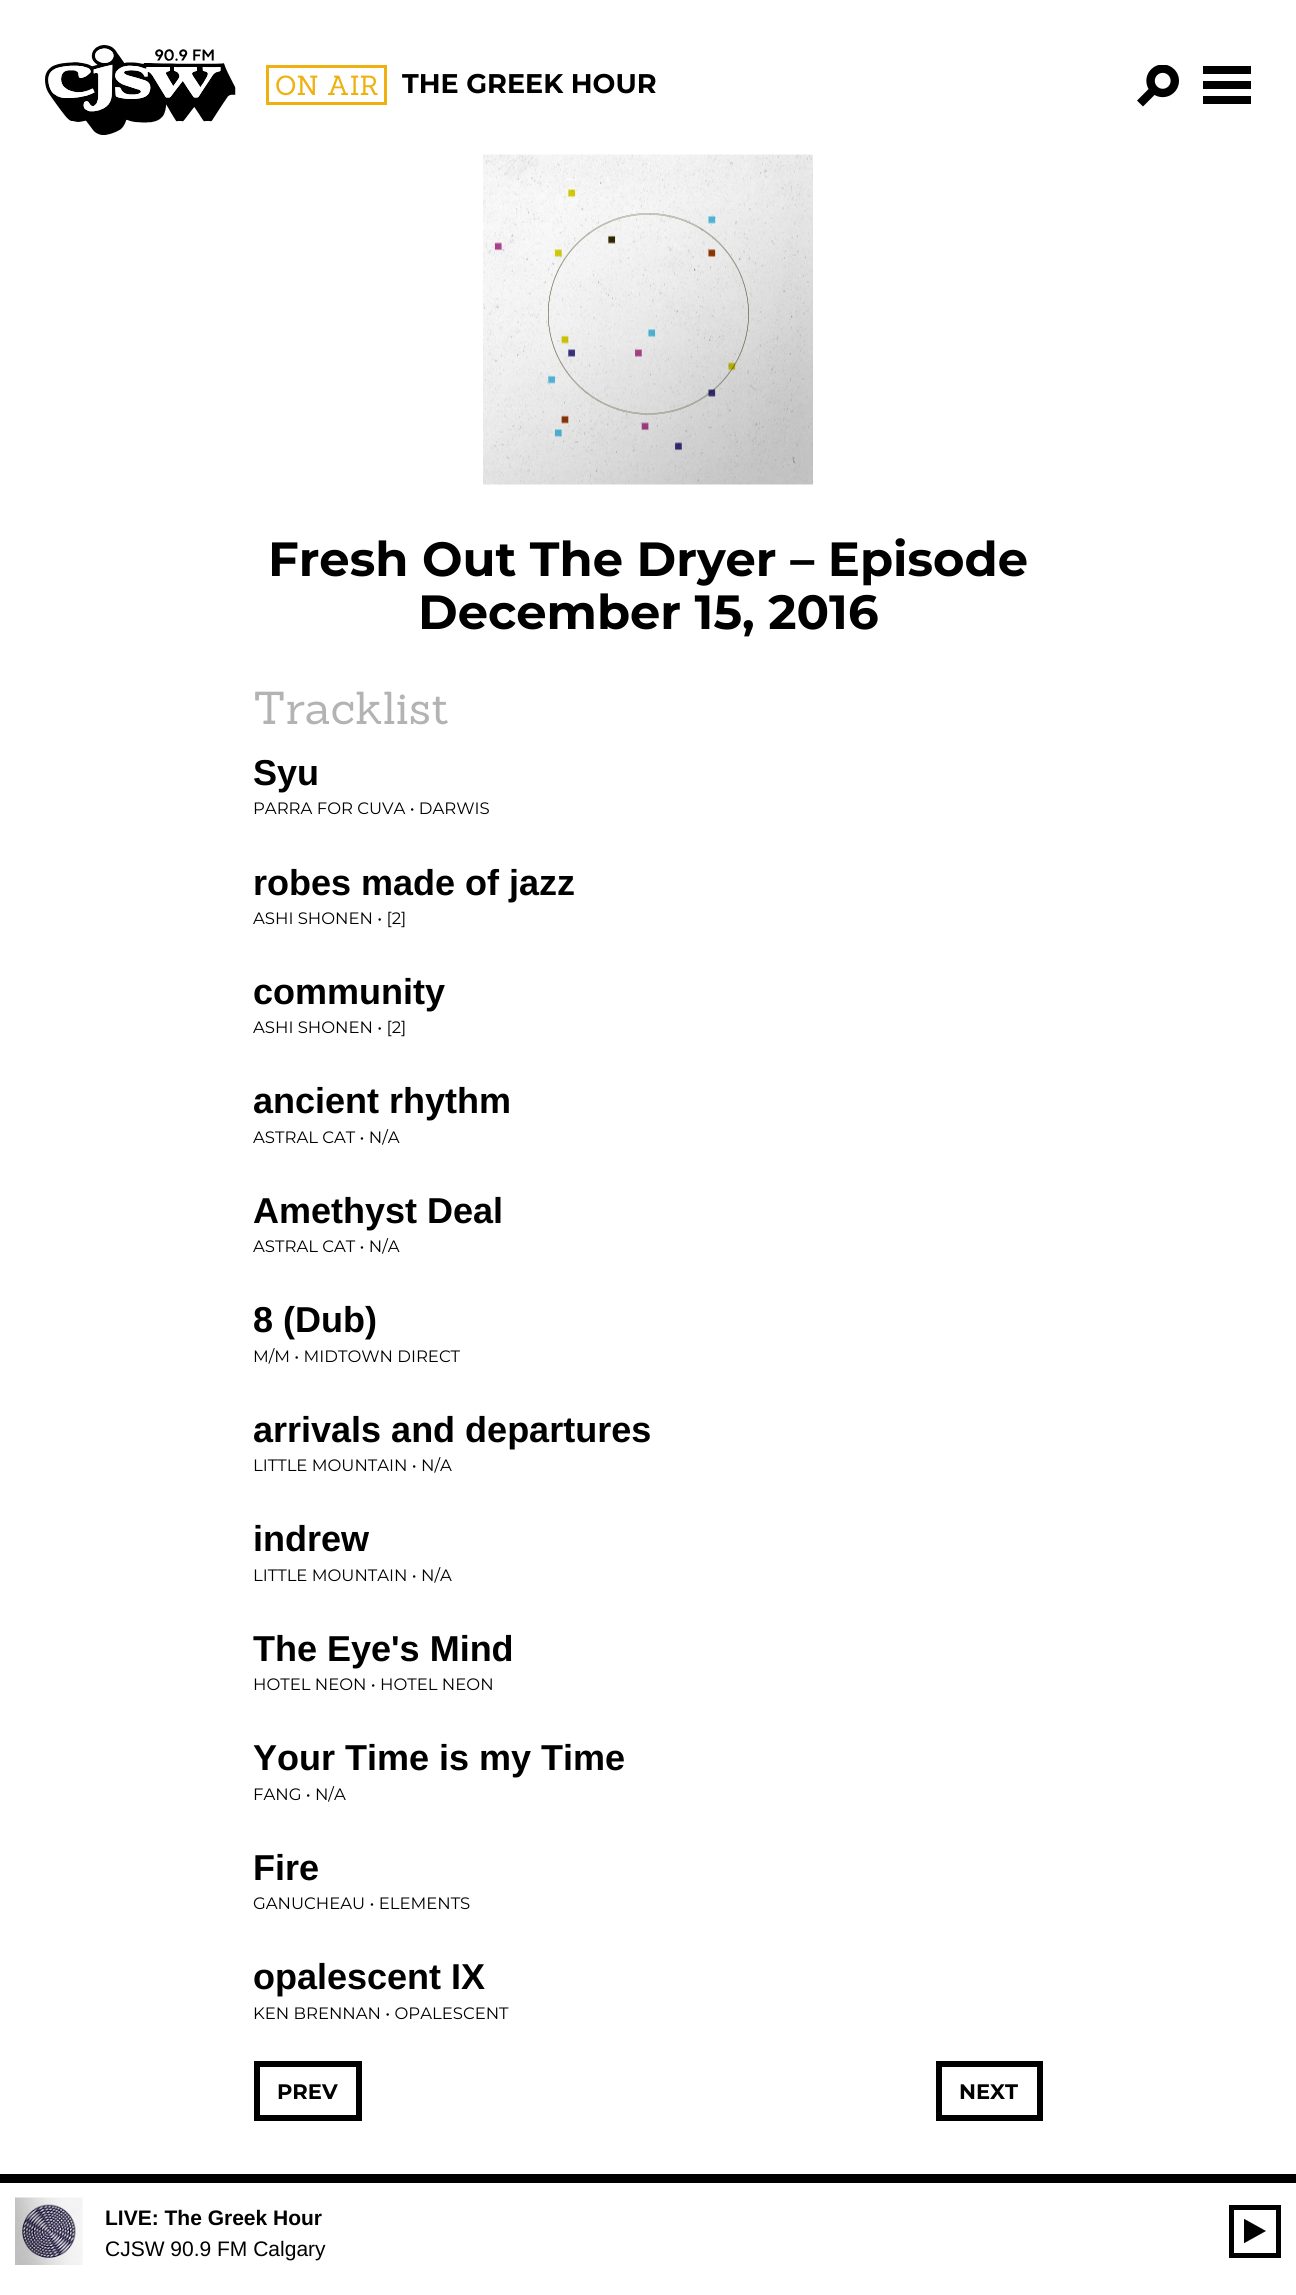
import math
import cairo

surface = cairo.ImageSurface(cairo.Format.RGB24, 1296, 2295)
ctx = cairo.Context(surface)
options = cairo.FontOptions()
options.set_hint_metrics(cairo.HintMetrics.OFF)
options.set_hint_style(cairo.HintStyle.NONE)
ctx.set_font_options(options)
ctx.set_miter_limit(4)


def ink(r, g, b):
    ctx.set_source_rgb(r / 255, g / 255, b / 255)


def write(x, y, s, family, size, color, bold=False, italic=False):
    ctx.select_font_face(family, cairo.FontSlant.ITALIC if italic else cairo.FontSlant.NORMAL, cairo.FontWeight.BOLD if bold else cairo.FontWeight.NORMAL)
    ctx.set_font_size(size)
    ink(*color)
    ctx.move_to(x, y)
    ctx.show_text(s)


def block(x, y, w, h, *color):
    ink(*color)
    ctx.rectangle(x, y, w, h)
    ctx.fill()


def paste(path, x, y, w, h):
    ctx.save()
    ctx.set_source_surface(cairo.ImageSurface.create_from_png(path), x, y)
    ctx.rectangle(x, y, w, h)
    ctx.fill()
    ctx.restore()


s1 = dict(family="Sanchez", size=27, color=(238, 177, 17))
s2 = dict(family="Montserrat", size=27, color=(0, 0, 0), bold=True)
s3 = dict(family="Montserrat", size=48, color=(0, 0, 0), bold=True)
s4 = dict(family="Sanchez", size=45, color=(179, 179, 179))
s5 = dict(family="Arimo", size=36, color=(0, 0, 0), bold=True)
s6 = dict(family="Montserrat", size=16.5, color=(0, 0, 0))
s7 = dict(family="Montserrat", size=21, color=(0, 0, 0), bold=True)
s8 = dict(family="Arimo", size=21, color=(0, 0, 0), bold=True)
s9 = dict(family="Arimo", size=21, color=(0, 0, 0))

ink(255, 255, 255)
ctx.paint()
paste("pic1.png", 45, 45, 191, 90)
ctx.rectangle(267.5, 66.5, 118, 37)
ink(238, 177, 17)
ctx.set_line_width(3)
ctx.stroke()
write(275, 95, "ON AIR", **s1)
write(402, 93, "THE GREEK HOUR", **s2)
paste("pic2.png", 1137, 65, 42, 42)
block(1203, 66, 48, 8, 0, 0, 0)
block(1203, 81, 48, 8, 0, 0, 0)
block(1203, 96, 48, 8, 0, 0, 0)
paste("pic3.png", 483, 154, 330, 331)
write(268, 576, "Fresh Out The Dryer – Episode", **s3)
write(418, 629, "December 15, 2016", **s3)
write(253, 724, "Tracklist", **s4)
write(253, 785, "Syu", **s5)
write(253, 814, "PARRA FOR CUVA • DARWIS", **s6)
write(253, 895, "robes made of jazz", **s5)
write(253, 924, "ASHI SHONEN • [2]", **s6)
write(253, 1004, "community", **s5)
write(253, 1033, "ASHI SHONEN • [2]", **s6)
write(253, 1113, "ancient rhythm", **s5)
write(253, 1143, "ASTRAL CAT • N/A", **s6)
write(253, 1223, "Amethyst Deal", **s5)
write(253, 1252, "ASTRAL CAT • N/A", **s6)
write(253, 1332, "8 (Dub)", **s5)
write(253, 1362, "M/M • MIDTOWN DIRECT", **s6)
write(253, 1442, "arrivals and departures", **s5)
write(253, 1471, "LITTLE MOUNTAIN • N/A", **s6)
write(253, 1551, "indrew", **s5)
write(253, 1581, "LITTLE MOUNTAIN • N/A", **s6)
write(253, 1661, "The Eye's Mind", **s5)
write(253, 1690, "HOTEL NEON • HOTEL NEON", **s6)
write(253, 1770, "Your Time is my Time", **s5)
write(253, 1800, "FANG • N/A", **s6)
write(253, 1880, "Fire", **s5)
write(253, 1909, "GANUCHEAU • ELEMENTS", **s6)
write(253, 1989, "opalescent IX", **s5)
write(253, 2019, "KEN BRENNAN • OPALESCENT", **s6)
ctx.rectangle(257, 2064, 102, 54)
ctx.set_line_width(6)
ctx.stroke()
write(277, 2099, "PREV", **s7)
ctx.rectangle(939, 2064, 101, 54)
ctx.stroke()
write(959, 2099, "NEXT", **s7)
block(0, 2174, 1296, 9, 0, 0, 0)
paste("pic4.png", 15, 2197, 68, 68)
write(105, 2225, "LIVE: The Greek Hour", **s8)
write(105, 2256, "CJSW 90.9 FM Calgary", **s9)
ctx.save()
ctx.rectangle(1244, 2219, 22, 25)
ctx.clip()
ink(1, 1, 1)
ctx.new_path()
ctx.move_to(1243.5, 2218.5)
ctx.line_to(1266, 2231)
ctx.line_to(1243.5, 2243.5)
ctx.close_path()
ctx.fill()
ctx.restore()
ctx.rectangle(1231.5, 2207.5, 47, 48)
ctx.set_line_width(5)
ctx.stroke()
surface.write_to_png("screenshot.png")
